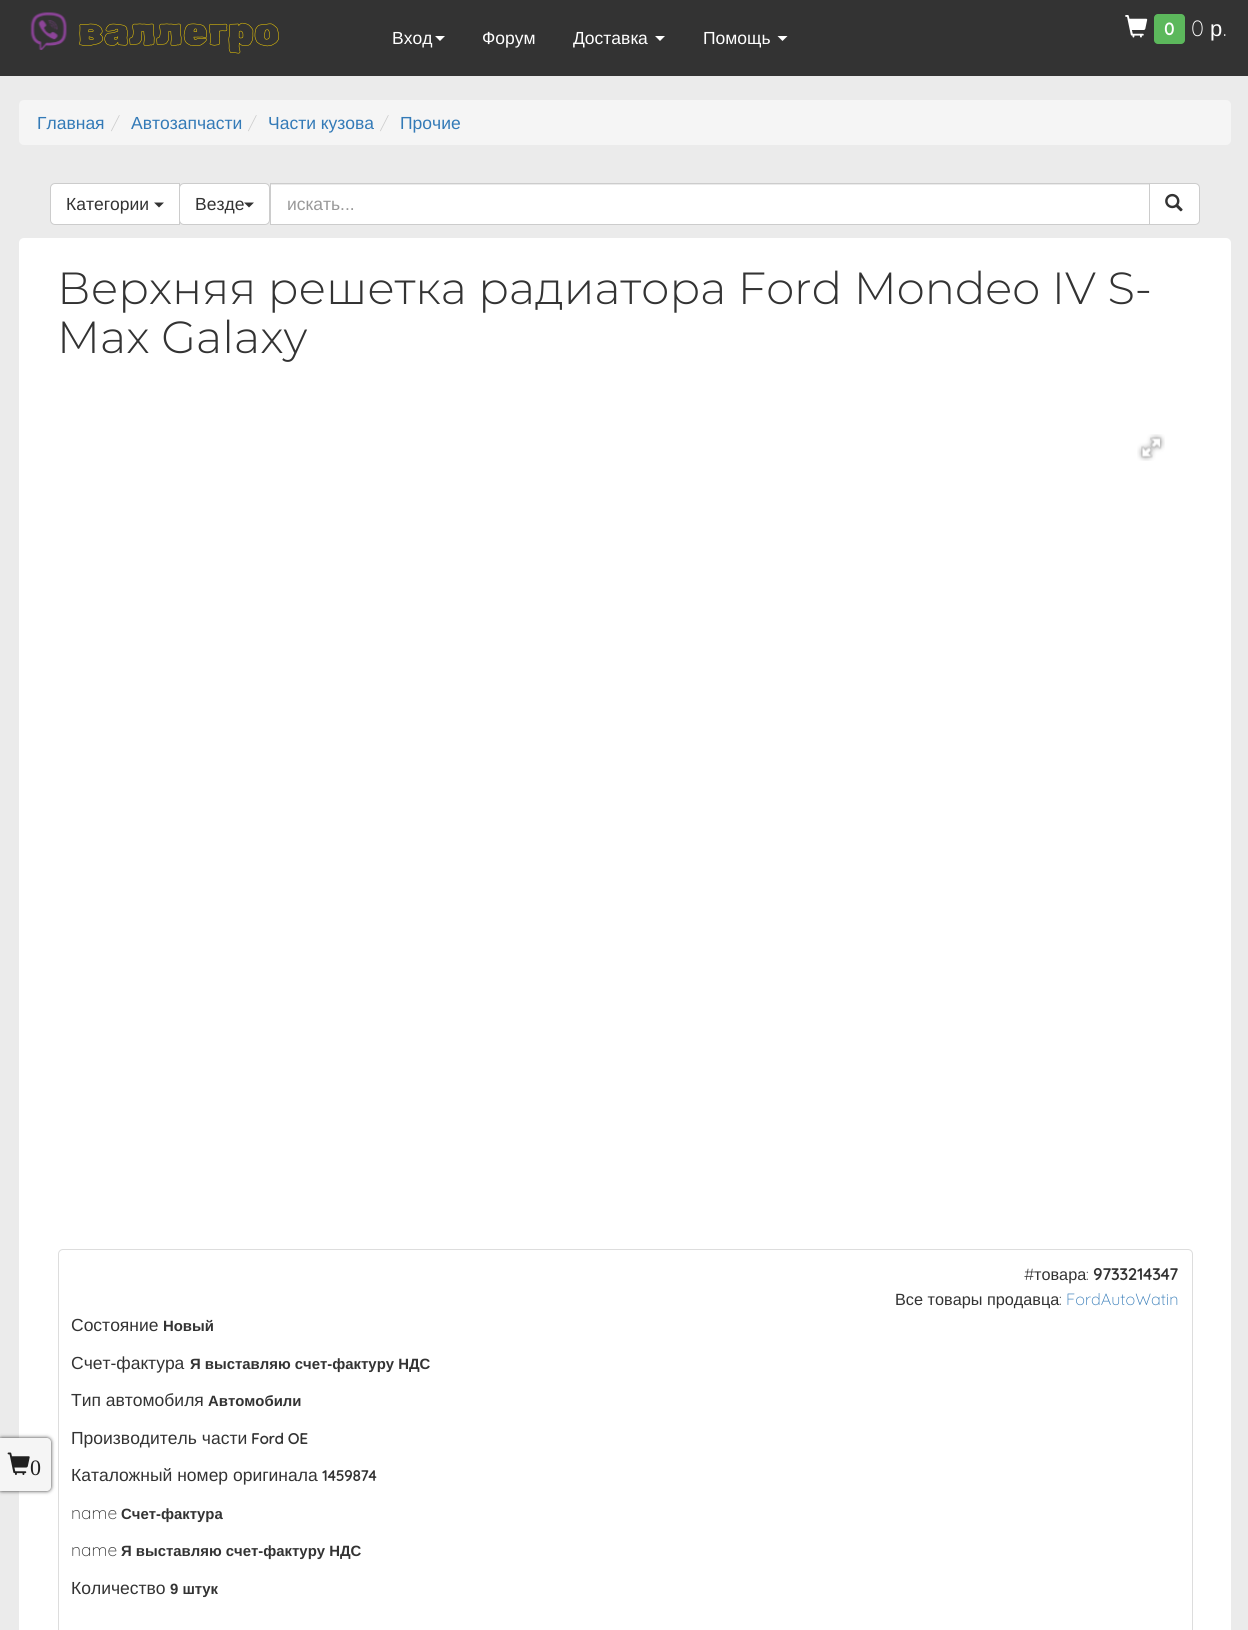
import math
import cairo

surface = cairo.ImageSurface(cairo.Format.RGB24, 1248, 1630)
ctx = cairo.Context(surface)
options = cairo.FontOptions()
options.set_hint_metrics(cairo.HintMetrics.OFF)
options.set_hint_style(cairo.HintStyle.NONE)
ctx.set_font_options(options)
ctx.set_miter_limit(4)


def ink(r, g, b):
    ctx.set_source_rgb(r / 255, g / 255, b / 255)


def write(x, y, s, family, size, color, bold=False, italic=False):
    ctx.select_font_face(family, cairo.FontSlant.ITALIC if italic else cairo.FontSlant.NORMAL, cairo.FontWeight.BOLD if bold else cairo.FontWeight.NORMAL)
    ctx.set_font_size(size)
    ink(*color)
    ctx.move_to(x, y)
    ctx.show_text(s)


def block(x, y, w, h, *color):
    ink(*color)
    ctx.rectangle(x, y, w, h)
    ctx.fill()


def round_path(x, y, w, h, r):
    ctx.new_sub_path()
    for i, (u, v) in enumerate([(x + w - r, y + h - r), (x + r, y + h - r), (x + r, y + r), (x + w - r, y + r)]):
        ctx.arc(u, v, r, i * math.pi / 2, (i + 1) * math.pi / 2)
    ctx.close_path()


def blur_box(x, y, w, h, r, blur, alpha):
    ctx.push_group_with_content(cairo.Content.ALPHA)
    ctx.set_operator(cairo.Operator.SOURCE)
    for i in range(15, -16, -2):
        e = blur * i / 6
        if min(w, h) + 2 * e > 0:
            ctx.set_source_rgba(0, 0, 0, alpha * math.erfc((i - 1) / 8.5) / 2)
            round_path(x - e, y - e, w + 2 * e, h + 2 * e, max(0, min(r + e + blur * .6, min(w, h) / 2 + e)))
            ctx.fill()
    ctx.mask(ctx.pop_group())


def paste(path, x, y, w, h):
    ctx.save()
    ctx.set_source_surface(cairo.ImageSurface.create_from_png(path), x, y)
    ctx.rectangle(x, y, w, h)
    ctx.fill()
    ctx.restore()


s1 = dict(family="Rubik Scribble", size=40, color=(255, 215, 0))
s2 = dict(family="Liberation Sans", size=17.5, color=(255, 255, 255))
s3 = dict(family="Quicksand", size=17, color=(255, 255, 255), bold=True)
s4 = dict(family="Quicksand Light", size=22, color=(255, 255, 255))
s5 = dict(family="Liberation Sans", size=22, color=(255, 255, 255))
s6 = dict(family="Liberation Serif", size=22, color=(32, 32, 32))
s7 = dict(family="Liberation Sans", size=17.5, color=(51, 122, 183))
s8 = dict(family="Quicksand Light", size=17.5, color=(204, 204, 204))
s9 = dict(family="Liberation Sans", size=17.5, color=(51, 51, 51))
s10 = dict(family="Liberation Sans", size=17.5, color=(153, 153, 153))
s11 = dict(family="Montserrat Thin", size=45, color=(51, 51, 51))
s12 = dict(family="Quicksand Light", size=16.25, color=(51, 51, 51))
s13 = dict(family="Liberation Sans", size=16.25, color=(51, 51, 51))
s14 = dict(family="Quicksand", size=16.25, color=(51, 51, 51), bold=True)
s15 = dict(family="Quicksand Light", size=16.25, color=(51, 122, 183))
s16 = dict(family="Liberation Sans", size=14.9, color=(51, 51, 51), bold=True)
s17 = dict(family="Quicksand", size=14.9, color=(51, 51, 51), bold=True)
s18 = dict(family="Quicksand Light", size=17.5, color=(51, 51, 51))

ink(235, 235, 235)
ctx.paint()
block(0, 0, 1248, 76, 51, 51, 51)
paste("pic1.png", 30, 12, 37, 38)
write(78, 45, "валлегро", **s1)
write(392, 44, "Вход", **s2)
ctx.new_path()
ctx.move_to(435, 36)
ctx.line_to(445, 36)
ctx.line_to(440, 41)
ctx.close_path()
ctx.fill()
write(482, 44, "Форум", **s2)
write(573, 44, "Доставка", **s2)
ctx.new_path()
ctx.move_to(655, 36)
ctx.line_to(665, 36)
ctx.line_to(660, 41)
ctx.close_path()
ctx.fill()
write(703, 44, "Помощь", **s2)
ctx.new_path()
ctx.move_to(777.5, 36)
ctx.line_to(787.5, 36)
ctx.line_to(782.5, 41)
ctx.close_path()
ctx.fill()
paste("pic2.png", 1125, 15, 23, 23)
ink(92, 184, 92)
round_path(1154, 14, 31, 30, 4)
ctx.fill()
write(1164, 35, "0", **s3)
write(1191, 36, "0", **s4)
write(1210, 36, "р", **s5)
write(1223, 36, ".", **s4)
round_path(19, 238, 1212, 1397, 5)
ctx.fill()
ink(0, 0, 0)
blur_box(-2, 1438, 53, 53, 4, 2, 0.8)
ink(245, 245, 245)
ctx.new_path()
ctx.move_to(-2, 1438)
ctx.line_to(47, 1438)
ctx.curve_to(49, 1438, 51, 1440, 51, 1442)
ctx.line_to(51, 1487)
ctx.curve_to(51, 1489, 49, 1491, 47, 1491)
ctx.line_to(-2, 1491)
ctx.close_path()
ctx.fill()
paste("pic3.png", 7, 1452, 23, 23)
write(30, 1475, "0", **s6)
ink(245, 245, 245)
round_path(19, 100, 1212, 45, 5)
ctx.fill()
write(37, 129, "Главная", **s7)
write(111, 129, "/", **s8)
write(131, 129, "Автозапчасти", **s7)
write(248, 129, "/", **s8)
write(268, 129, "Части кузова", **s7)
write(380, 129, "/", **s8)
write(400, 129, "Прочие", **s7)
ink(255, 255, 255)
ctx.new_path()
ctx.move_to(55, 183.5)
ctx.line_to(179.5, 183.5)
ctx.line_to(179.5, 224.5)
ctx.line_to(55, 224.5)
ctx.curve_to(52.5, 224.5, 50.5, 222.5, 50.5, 220)
ctx.line_to(50.5, 188)
ctx.curve_to(50.5, 185.5, 52.5, 183.5, 55, 183.5)
ctx.close_path()
ctx.fill_preserve()
ink(204, 204, 204)
ctx.set_line_width(1)
ctx.stroke()
write(66, 210, "Категории", **s9)
ctx.new_path()
ctx.move_to(154, 202.5)
ctx.line_to(164, 202.5)
ctx.line_to(159, 207.5)
ctx.close_path()
ctx.fill()
ink(255, 255, 255)
round_path(179.5, 183.5, 90, 41, 4.5)
ctx.fill_preserve()
ink(204, 204, 204)
ctx.stroke()
write(195, 210, "Везде", **s9)
ctx.new_path()
ctx.move_to(244, 202.5)
ctx.line_to(254, 202.5)
ctx.line_to(249, 207.5)
ctx.close_path()
ctx.fill()
block(271, 185, 878, 39, 255, 255, 255)
ctx.rectangle(270.5, 183.5, 879, 41)
ink(204, 204, 204)
ctx.stroke()
write(287, 210, "искать...", **s10)
ink(255, 255, 255)
ctx.new_path()
ctx.move_to(1149.5, 183.5)
ctx.line_to(1195, 183.5)
ctx.curve_to(1197.5, 183.5, 1199.5, 185.5, 1199.5, 188)
ctx.line_to(1199.5, 220)
ctx.curve_to(1199.5, 222.5, 1197.5, 224.5, 1195, 224.5)
ctx.line_to(1149.5, 224.5)
ctx.close_path()
ctx.fill_preserve()
ink(204, 204, 204)
ctx.stroke()
paste("pic4.png", 1165, 193, 18, 19)
write(57, 304, "Верхняя решетка радиатора Ford Mondeo IV S-", **s11)
write(57, 353, "Max Galaxy", **s11)
paste("pic5.png", 1137, 434, 28, 27)
round_path(58.5, 1249.5, 1134, 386, 4.5)
ink(221, 221, 221)
ctx.stroke()
write(1024, 1280, "#", **s12)
write(1034, 1280, "товара", **s13)
write(1086, 1280, ":", **s12)
write(1093, 1280, "9733214347", **s14)
write(895, 1305, "Все товары продавца", **s13)
write(1059, 1305, ":", **s12)
write(1066, 1305, "FordAutoWatin", **s15)
write(71, 1331, "Состояние", **s9)
write(163, 1331, "Новый", **s16)
write(71, 1369, "Счет-фактура", **s9)
write(190, 1369, "Я выставляю счет-фактуру НДС", **s16)
write(71, 1406, "Тип автомобиля", **s9)
write(208, 1406, "Автомобили", **s16)
write(71, 1444, "Производитель части", **s9)
write(251, 1444, "Ford OE", **s17)
write(71, 1481, "Каталожный номер оригинала", **s9)
write(322, 1481, "1459874", **s17)
write(71, 1519, "name", **s18)
write(121, 1519, "Счет-фактура", **s16)
write(71, 1556, "name", **s18)
write(121, 1556, "Я выставляю счет-фактуру НДС", **s16)
write(71, 1594, "Количество", **s9)
write(170, 1594, "9 штук", **s16)
surface.write_to_png("screenshot.png")
